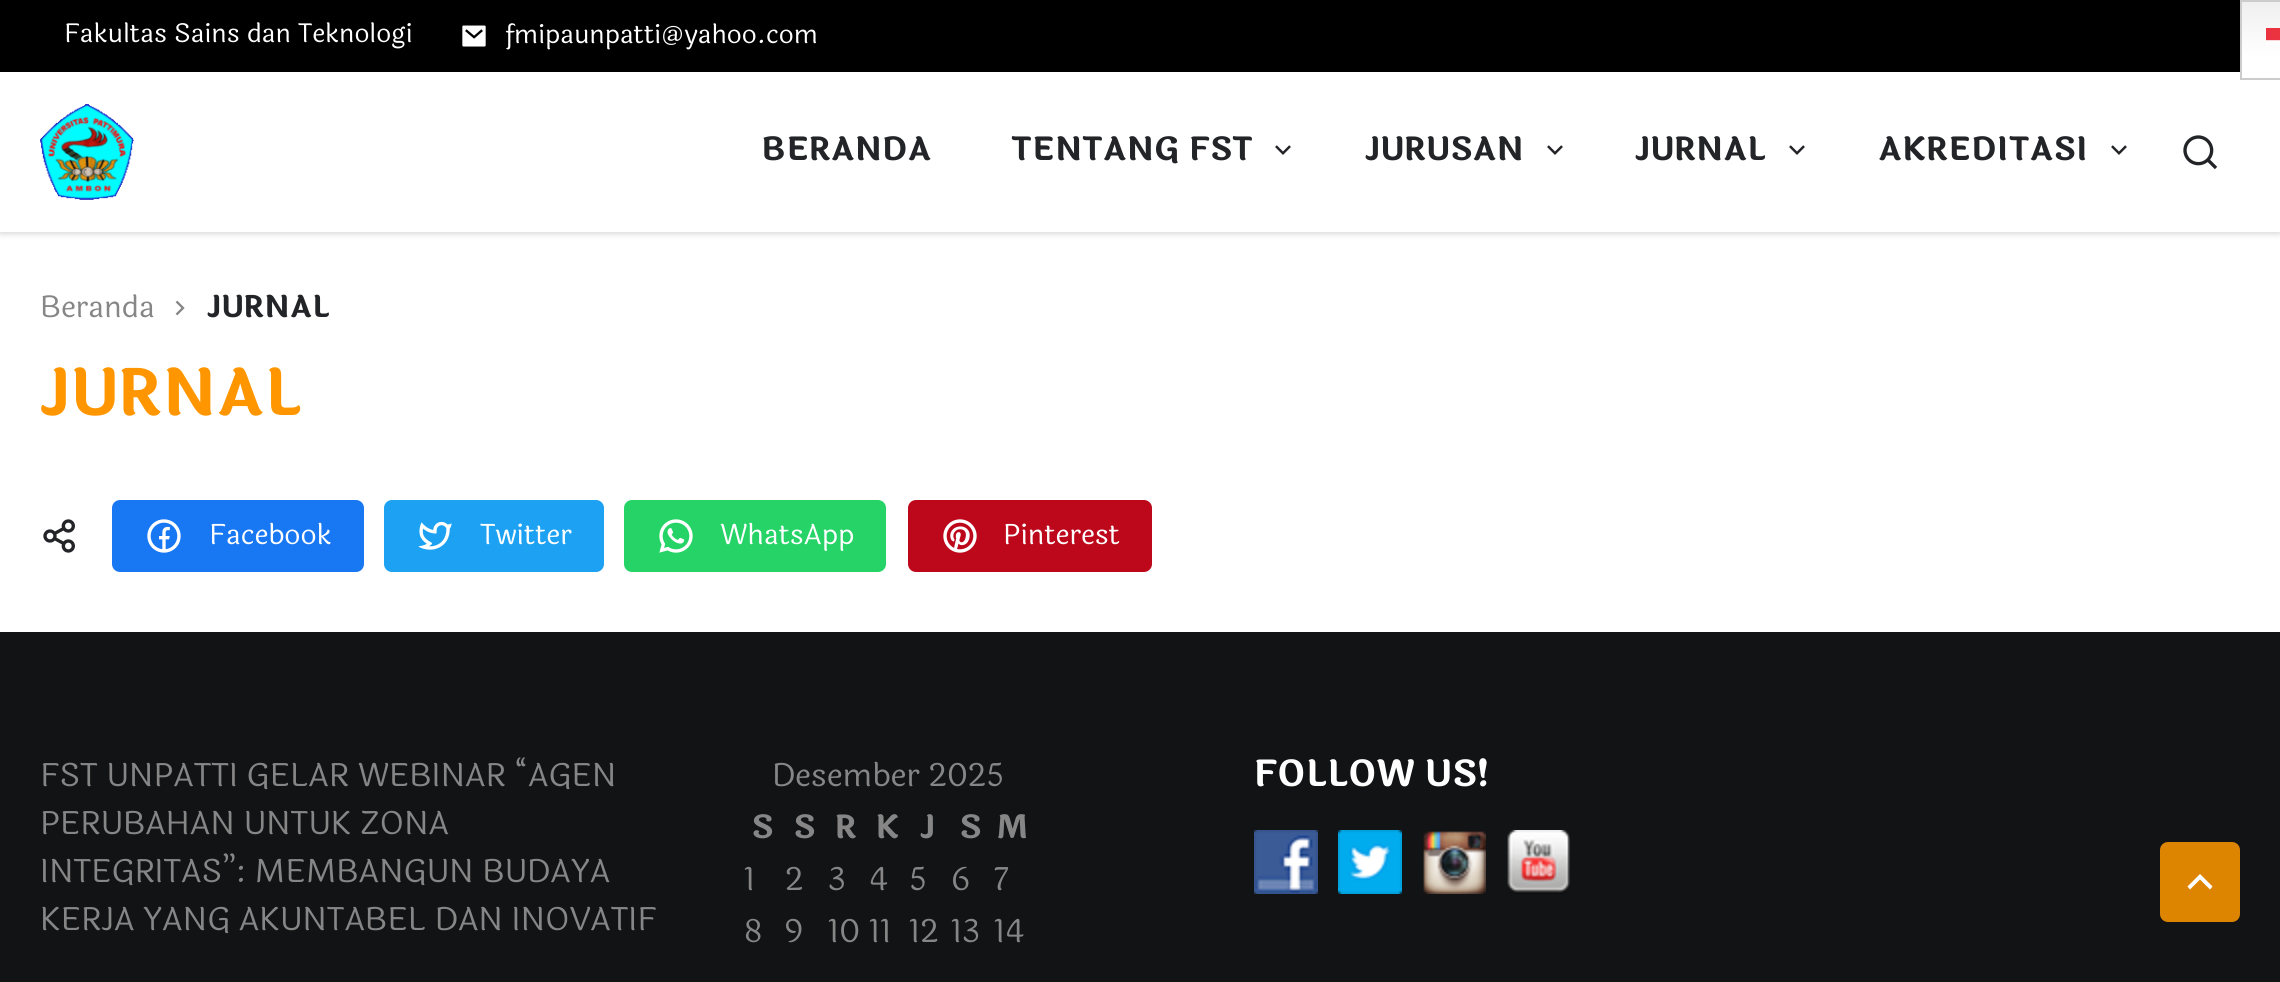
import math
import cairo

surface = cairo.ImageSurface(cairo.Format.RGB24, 2280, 982)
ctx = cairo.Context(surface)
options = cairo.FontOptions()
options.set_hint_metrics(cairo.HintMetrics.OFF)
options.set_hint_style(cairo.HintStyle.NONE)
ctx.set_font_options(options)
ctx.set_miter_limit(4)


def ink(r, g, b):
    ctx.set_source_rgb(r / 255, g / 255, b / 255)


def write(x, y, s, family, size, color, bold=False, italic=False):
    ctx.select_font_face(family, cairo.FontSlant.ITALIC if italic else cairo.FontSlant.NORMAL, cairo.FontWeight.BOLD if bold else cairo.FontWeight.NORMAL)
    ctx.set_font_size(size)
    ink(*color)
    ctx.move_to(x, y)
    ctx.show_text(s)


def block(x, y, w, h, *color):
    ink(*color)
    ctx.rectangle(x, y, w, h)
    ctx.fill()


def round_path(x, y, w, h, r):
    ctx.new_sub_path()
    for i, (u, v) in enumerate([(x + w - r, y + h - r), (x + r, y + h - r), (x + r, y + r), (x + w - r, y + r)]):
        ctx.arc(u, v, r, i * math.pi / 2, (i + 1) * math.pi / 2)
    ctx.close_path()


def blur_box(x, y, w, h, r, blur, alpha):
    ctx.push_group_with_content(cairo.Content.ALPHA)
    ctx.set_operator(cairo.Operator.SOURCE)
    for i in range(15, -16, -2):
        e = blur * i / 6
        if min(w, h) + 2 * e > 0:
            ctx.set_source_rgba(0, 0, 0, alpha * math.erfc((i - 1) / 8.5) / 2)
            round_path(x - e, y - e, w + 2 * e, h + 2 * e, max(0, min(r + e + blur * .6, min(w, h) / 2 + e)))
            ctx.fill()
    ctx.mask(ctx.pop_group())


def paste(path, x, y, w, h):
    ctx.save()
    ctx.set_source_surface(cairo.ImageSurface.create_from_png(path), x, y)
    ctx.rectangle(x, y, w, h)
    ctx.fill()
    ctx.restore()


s1 = dict(family="Laila", size=26, color=(255, 255, 255))
s2 = dict(family="Laila", size=32, color=(35, 36, 40), bold=True)
s3 = dict(family="Laila", size=30, color=(134, 134, 134))
s4 = dict(family="Laila", size=30, color=(35, 36, 40), bold=True)
s5 = dict(family="Laila", size=64, color=(255, 150, 0), bold=True)
s6 = dict(family="Laila", size=28, color=(255, 255, 255))
s7 = dict(family="Laila", size=32, color=(134, 134, 134))
s8 = dict(family="Laila", size=32, color=(134, 134, 134), bold=True)
s9 = dict(family="Laila", size=36, color=(255, 255, 255), bold=True)

ink(255, 255, 255)
ctx.paint()
block(0, 0, 2240, 72, 0, 0, 0)
write(64, 42, "Fakultas Sains dan Teknologi", **s1)
paste("pic1.png", 462, 25, 24, 22)
write(505, 43, "fmipaunpatti@yahoo.com", **s1)
ctx.save()
ctx.set_fill_rule(cairo.FillRule.EVEN_ODD)
ctx.new_path()
ctx.move_to(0, 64)
ctx.line_to(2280, 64)
ctx.line_to(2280, 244)
ctx.line_to(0, 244)
ctx.close_path()
ctx.move_to(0, 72)
ctx.line_to(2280, 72)
ctx.line_to(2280, 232)
ctx.line_to(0, 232)
ctx.close_path()
ctx.clip()
ink(0, 0, 0)
blur_box(0, 74, 2280, 160, 0, 3, 0.15)
ctx.restore()
gradient = cairo.LinearGradient(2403, 0, 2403, 80)
gradient.add_color_stop_rgba(0, 0.937, 0.937, 0.937, 1)
gradient.add_color_stop_rgba(0.7, 1, 1, 1, 1)
ctx.set_source(gradient)
ctx.rectangle(2242, 2, 38, 70)
ctx.fill()
gradient = cairo.LinearGradient(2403, 0, 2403, 80)
gradient.add_color_stop_rgba(0, 0.988, 0.988, 0.988, 1)
gradient.add_color_stop_rgba(0.7, 1, 1, 1, 1)
ctx.set_source(gradient)
ctx.rectangle(2266, 41, 14, 3)
ctx.fill()
gradient = cairo.LinearGradient(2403, 0, 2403, 80)
gradient.add_color_stop_rgba(0, 0.914, 0.188, 0.239, 1)
gradient.add_color_stop_rgba(0.7, 0.925, 0.2, 0.255, 1)
ctx.set_source(gradient)
ctx.rectangle(2266, 28, 14, 12)
ctx.fill()
gradient = cairo.LinearGradient(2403, 0, 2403, 80)
gradient.add_color_stop_rgba(0, 0.984, 0.839, 0.847, 1)
gradient.add_color_stop_rgba(0.7, 0.984, 0.839, 0.851, 1)
ctx.set_source(gradient)
ctx.rectangle(2266, 40, 14, 1)
ctx.fill()
ctx.rectangle(2241, 1, 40, 78)
ink(204, 204, 204)
ctx.stroke()
paste("pic2.png", 40, 104, 94, 96)
write(761, 160, "BERANDA", **s2)
write(1011, 160, "TENTANG FST", **s2)
paste("pic3.png", 1275, 145, 16, 10)
write(1365, 160, "JURUSAN", **s2)
paste("pic3.png", 1547, 145, 16, 10)
write(1635, 160, "JURNAL", **s2)
paste("pic3.png", 1789, 145, 16, 10)
write(1878, 160, "AKREDITASI", **s2)
paste("pic3.png", 2111, 145, 16, 10)
paste("pic4.png", 2183, 135, 35, 35)
write(40, 317, "Beranda", **s3)
paste("pic5.png", 175, 300, 10, 16)
write(207, 317, "JURNAL", **s4)
write(40, 415, "JURNAL", **s5)
paste("pic6.png", 43, 519, 32, 34)
ink(24, 119, 242)
round_path(112, 500, 252, 72, 8)
ctx.fill()
paste("pic7.png", 147, 519, 34, 34)
write(209, 544, "Facebook", **s6)
ink(29, 161, 242)
round_path(384, 500, 220, 72, 8)
ctx.fill()
paste("pic8.png", 418, 521, 34, 29)
write(480, 544, "Twitter", **s6)
ink(37, 211, 102)
round_path(624, 500, 262, 72, 8)
ctx.fill()
paste("pic9.png", 659, 519, 34, 34)
write(720, 544, "WhatsApp", **s6)
ink(189, 8, 28)
round_path(908, 500, 244, 72, 8)
ctx.fill()
paste("pic10.png", 943, 519, 34, 34)
write(1003, 544, "Pinterest", **s6)
block(0, 632, 2280, 350, 18, 19, 20)
write(40, 786, "FST UNPATTI GELAR WEBINAR “AGEN", **s7)
write(40, 834, "PERUBAHAN UNTUK ZONA", **s7)
write(40, 882, "INTEGRITAS”: MEMBANGUN BUDAYA", **s7)
write(40, 930, "KERJA YANG AKUNTABEL DAN INOVATIF", **s7)
write(772, 786, "Desember 2025", **s7)
write(751, 838, "S", **s8)
write(793, 838, "S", **s8)
write(835, 838, "R", **s8)
write(875, 838, "K", **s8)
write(920, 838, "J", **s8)
write(959, 838, "S", **s8)
write(997, 838, "M", **s8)
write(744, 890, "1", **s7)
write(785, 890, "2", **s7)
write(828, 890, "3", **s7)
write(869, 890, "4", **s7)
write(909, 890, "5", **s7)
write(951, 890, "6", **s7)
write(994, 890, "7", **s7)
write(744, 942, "8", **s7)
write(785, 942, "9", **s7)
write(828, 942, "10", **s7)
write(869, 942, "11", **s7)
write(909, 942, "12", **s7)
write(951, 942, "13", **s7)
write(994, 942, "14", **s7)
write(1253, 786, "FOLLOW US!", **s9)
paste("pic11.png", 1254, 830, 64, 64)
paste("pic12.png", 1338, 830, 64, 64)
paste("pic13.png", 1423, 831, 63, 63)
paste("pic14.png", 1507, 830, 63, 64)
ink(221, 133, 0)
round_path(2160, 842, 80, 80, 8)
ctx.fill()
ink(255, 255, 255)
ctx.new_path()
ctx.move_to(2200, 879.5)
ctx.line_to(2190, 889.5)
ctx.line_to(2187.5, 886.5)
ctx.line_to(2200, 874)
ctx.line_to(2212.5, 886.5)
ctx.line_to(2210, 889.5)
ctx.close_path()
ctx.fill()
surface.write_to_png("screenshot.png")
